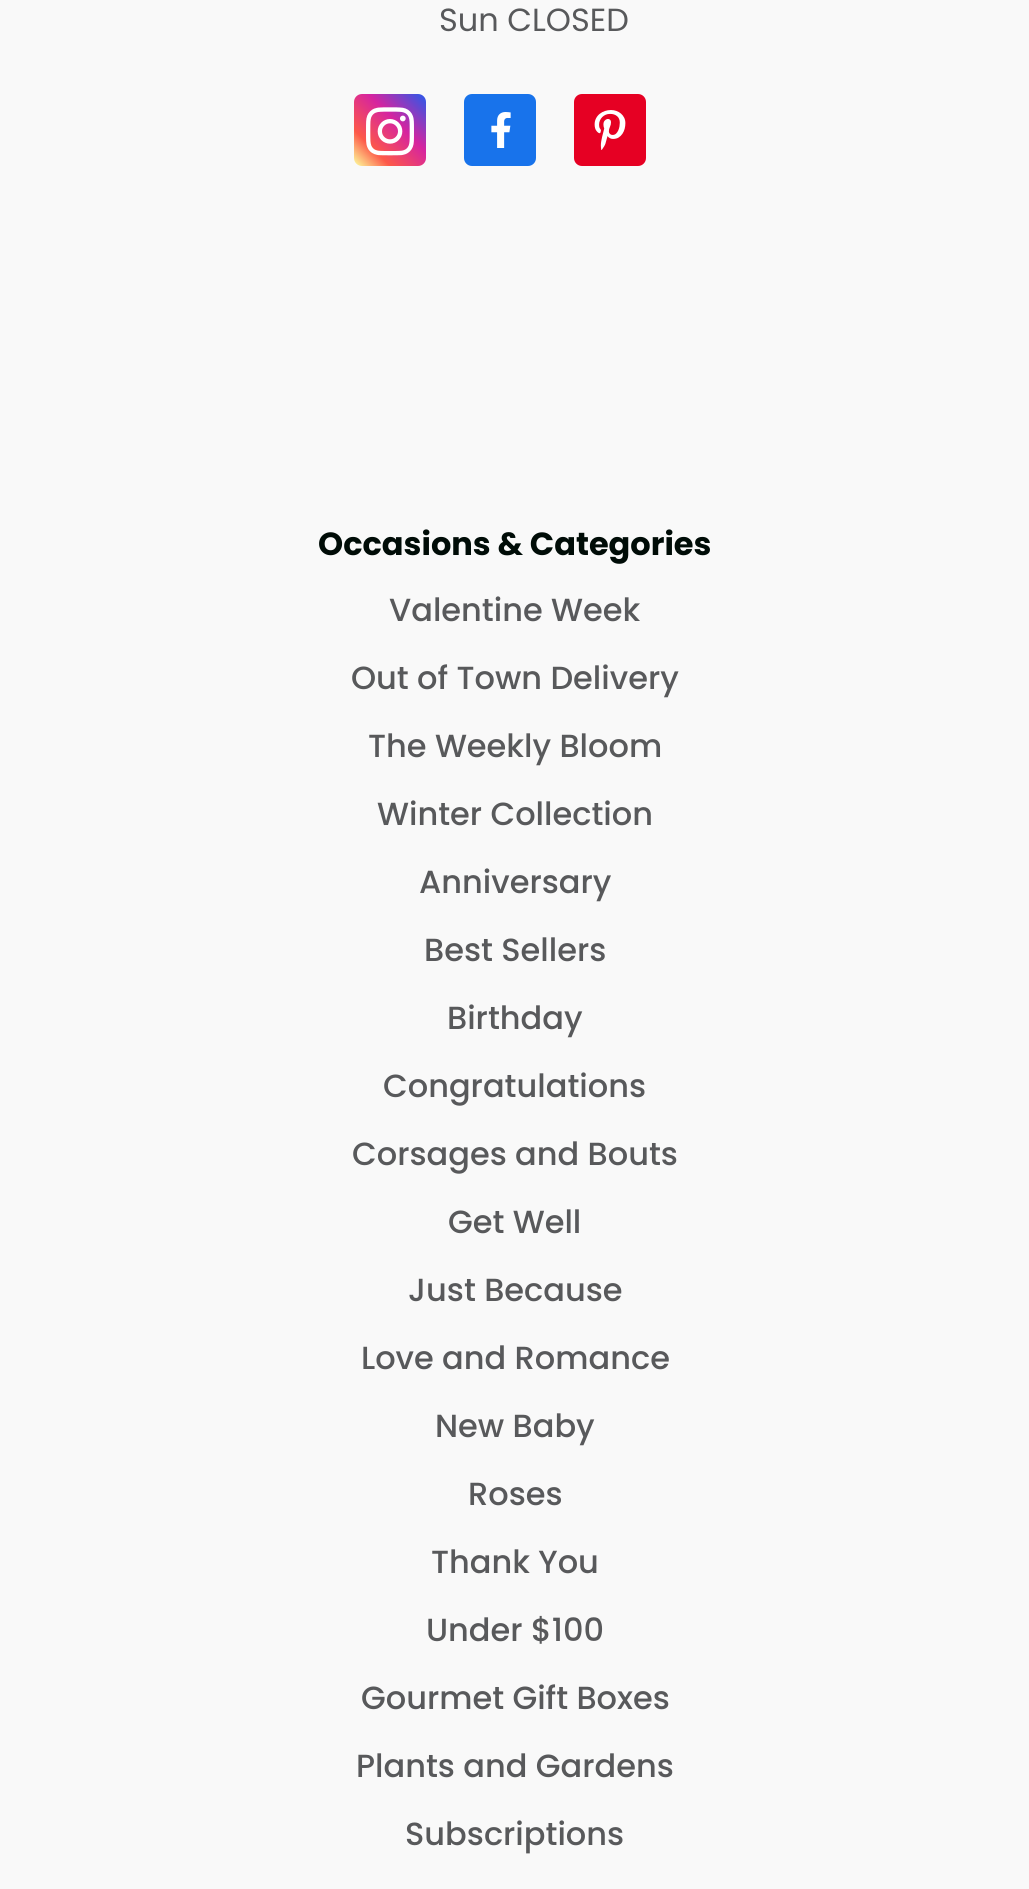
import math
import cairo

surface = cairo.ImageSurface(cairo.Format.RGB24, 1029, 1889)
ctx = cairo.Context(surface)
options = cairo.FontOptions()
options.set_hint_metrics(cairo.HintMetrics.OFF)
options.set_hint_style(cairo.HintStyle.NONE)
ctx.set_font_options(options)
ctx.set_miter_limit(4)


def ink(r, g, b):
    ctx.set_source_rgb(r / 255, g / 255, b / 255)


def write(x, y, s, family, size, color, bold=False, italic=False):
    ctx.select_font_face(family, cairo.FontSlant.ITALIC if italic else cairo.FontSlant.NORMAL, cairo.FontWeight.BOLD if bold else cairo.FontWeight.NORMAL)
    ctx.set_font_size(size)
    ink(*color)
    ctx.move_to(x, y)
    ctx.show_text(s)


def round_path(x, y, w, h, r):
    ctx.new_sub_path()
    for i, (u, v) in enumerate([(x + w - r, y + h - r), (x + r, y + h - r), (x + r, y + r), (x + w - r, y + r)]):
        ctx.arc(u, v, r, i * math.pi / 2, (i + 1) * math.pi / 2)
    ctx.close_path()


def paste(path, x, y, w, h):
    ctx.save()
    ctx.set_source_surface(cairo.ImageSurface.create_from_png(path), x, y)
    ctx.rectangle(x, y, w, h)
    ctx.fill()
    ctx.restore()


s1 = dict(family="Poppins", size=32, color=(88, 89, 91))
s2 = dict(family="Poppins", size=32, color=(0, 12, 7), bold=True)
s3 = dict(family="Poppins Medium", size=32, color=(88, 89, 91))

ink(249, 249, 249)
ctx.paint()
write(439, 31, "Sun CLOSED", **s1)
gradient = cairo.LinearGradient(354, 166, 426, 94)
gradient.add_color_stop_rgba(0, 0.992, 0.957, 0.592, 1)
gradient.add_color_stop_rgba(0.02, 0.992, 0.957, 0.592, 1)
gradient.add_color_stop_rgba(0.25, 0.992, 0.349, 0.286, 1)
gradient.add_color_stop_rgba(0.6, 0.839, 0.141, 0.624, 1)
gradient.add_color_stop_rgba(1, 0.157, 0.353, 0.922, 1)
ctx.set_source(gradient)
round_path(354, 94, 72, 72, 8)
ctx.fill()
paste("pic1.png", 366, 107, 48, 49)
ink(24, 115, 235)
round_path(464, 94, 72, 72, 8)
ctx.fill()
paste("pic2.png", 491, 112, 20, 36)
ink(230, 0, 35)
round_path(574, 94, 72, 72, 8)
ctx.fill()
paste("pic3.png", 594, 110, 32, 40)
write(318, 555, "Occasions & Categories", **s2)
write(389, 621, "Valentine Week", **s3)
write(351, 689, "Out of Town Delivery", **s3)
write(368, 757, "The Weekly Bloom", **s3)
write(377, 825, "Winter Collection", **s3)
write(419, 893, "Anniversary", **s3)
write(424, 961, "Best Sellers", **s3)
write(447, 1029, "Birthday", **s3)
write(383, 1097, "Congratulations", **s3)
write(352, 1165, "Corsages and Bouts", **s3)
write(448, 1233, "Get Well", **s3)
write(408, 1301, "Just Because", **s3)
write(361, 1369, "Love and Romance", **s3)
write(435, 1437, "New Baby", **s3)
write(468, 1505, "Roses", **s3)
write(431, 1573, "Thank You", **s3)
write(426, 1641, "Under $100", **s3)
write(361, 1709, "Gourmet Gift Boxes", **s3)
write(356, 1777, "Plants and Gardens", **s3)
write(405, 1845, "Subscriptions", **s3)
surface.write_to_png("screenshot.png")
